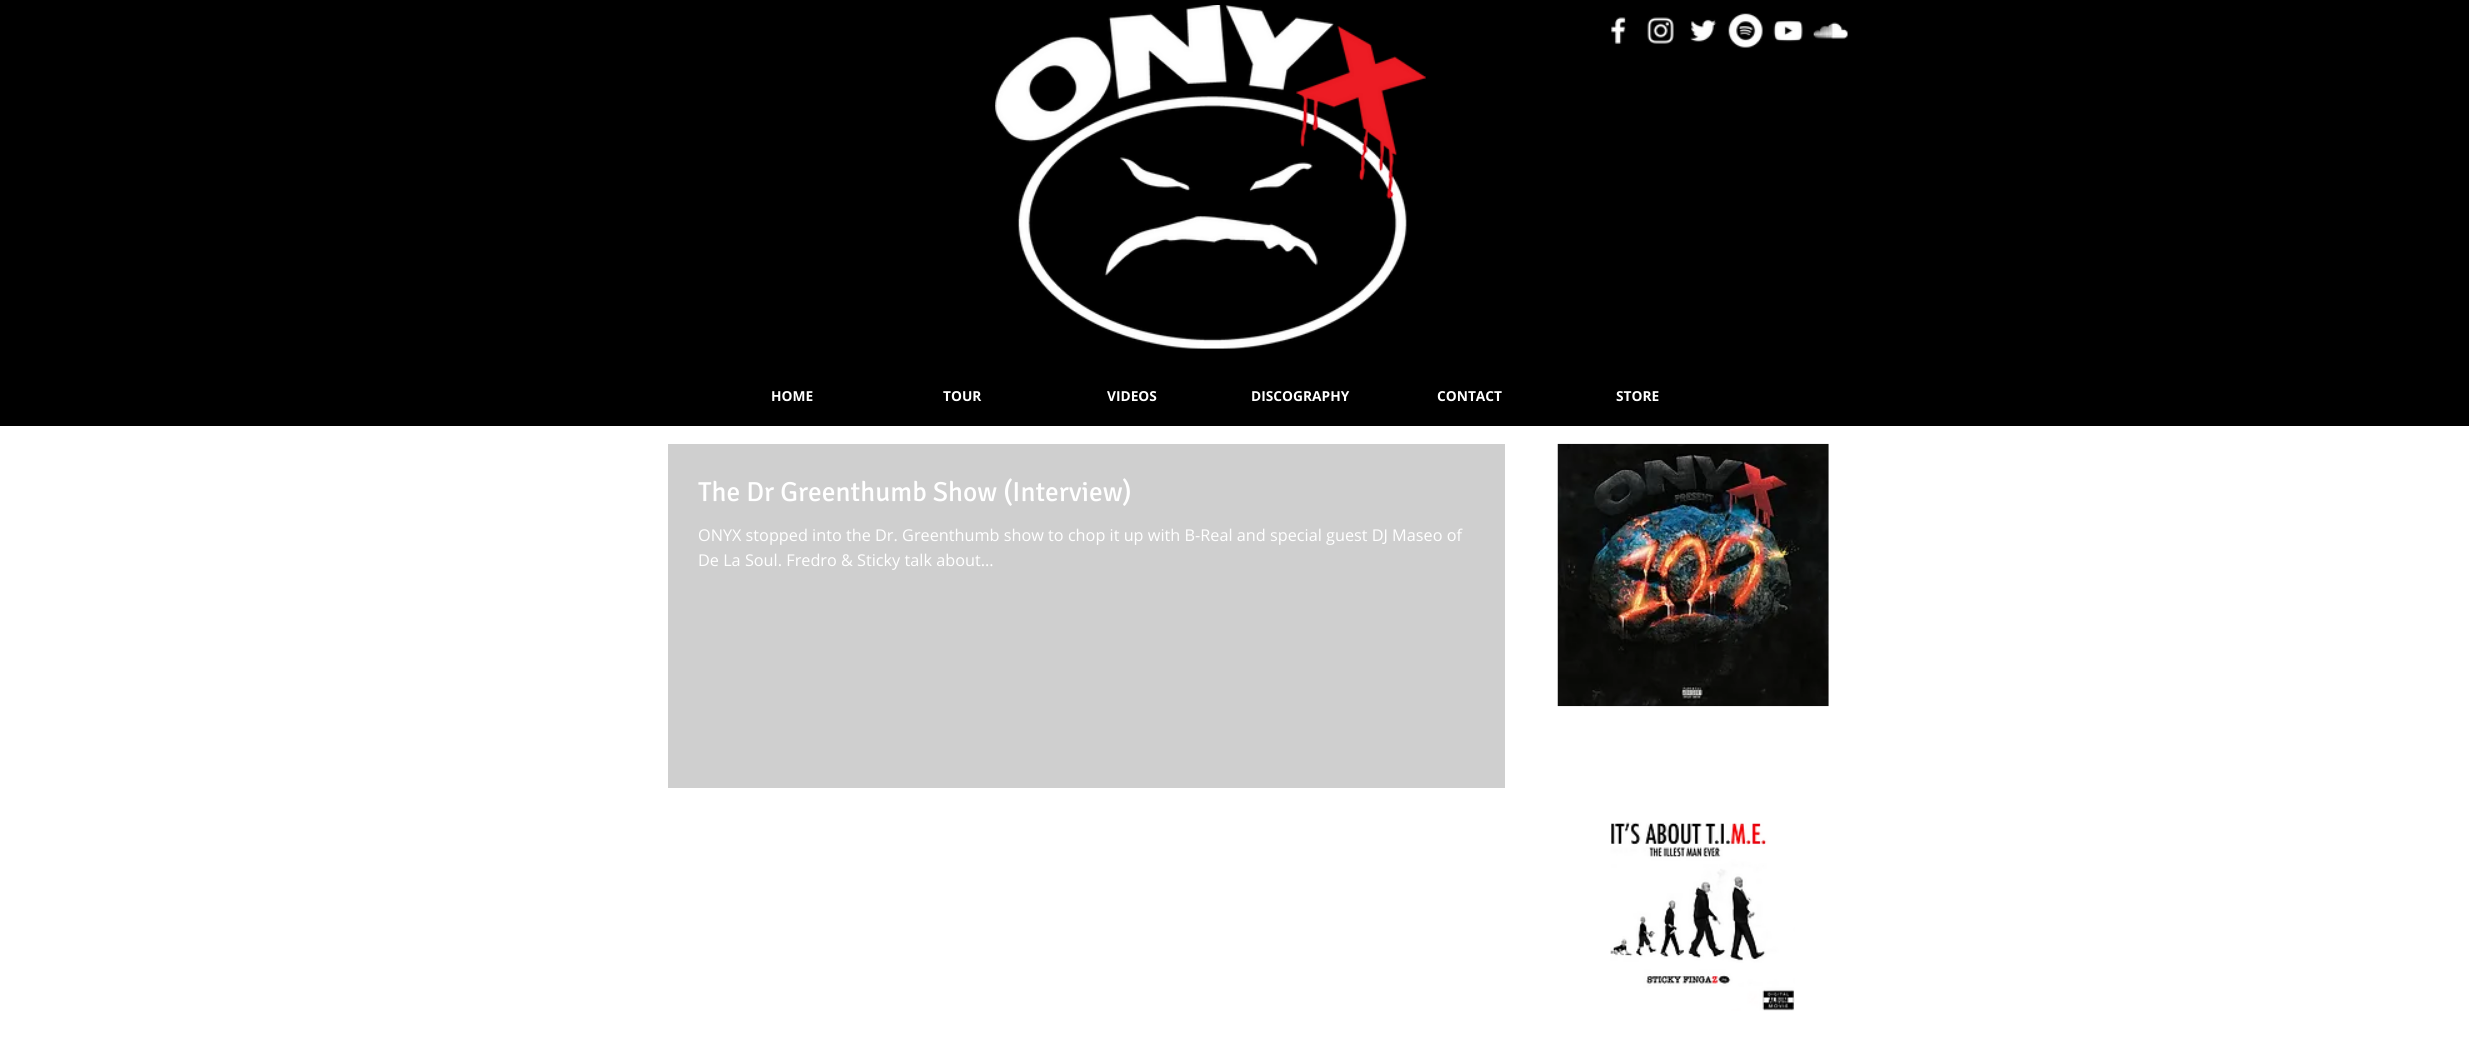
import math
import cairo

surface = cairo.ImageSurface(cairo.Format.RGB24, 2469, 1049)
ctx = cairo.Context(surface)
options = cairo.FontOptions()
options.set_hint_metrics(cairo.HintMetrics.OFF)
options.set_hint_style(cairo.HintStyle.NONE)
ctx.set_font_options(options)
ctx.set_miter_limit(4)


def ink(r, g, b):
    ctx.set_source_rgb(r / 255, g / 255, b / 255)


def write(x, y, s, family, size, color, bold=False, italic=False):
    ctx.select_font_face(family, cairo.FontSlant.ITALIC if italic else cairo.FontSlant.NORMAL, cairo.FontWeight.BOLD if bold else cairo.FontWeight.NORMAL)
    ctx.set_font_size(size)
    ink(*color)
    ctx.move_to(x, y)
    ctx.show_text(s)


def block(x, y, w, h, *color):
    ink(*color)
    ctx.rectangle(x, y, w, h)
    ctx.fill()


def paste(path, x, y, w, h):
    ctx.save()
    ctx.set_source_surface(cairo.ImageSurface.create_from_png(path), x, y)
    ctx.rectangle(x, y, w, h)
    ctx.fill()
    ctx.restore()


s1 = dict(family="Open Sans", size=13.75, color=(255, 255, 255), bold=True)
s2 = dict(family="Signika", size=27.5, color=(255, 255, 255))
s3 = dict(family="Open Sans", size=16.25, color=(255, 255, 255))

ink(255, 255, 255)
ctx.paint()
block(0, 0, 2469, 426, 0, 0, 0)
paste("pic1.png", 995, 5, 431, 344)
paste("pic2.png", 1611, 17, 15, 27)
paste("pic3.png", 1647, 17, 27, 27)
paste("pic4.png", 1690, 19, 27, 23)
paste("pic5.png", 1728, 13, 35, 35)
paste("pic6.png", 1773, 20, 30, 22)
paste("pic7.png", 1813, 22, 35, 17)
write(771, 401, "HOME", **s1)
write(943, 401, "TOUR", **s1)
write(1107, 401, "VIDEOS", **s1)
write(1251, 401, "DISCOGRAPHY", **s1)
write(1437, 401, "CONTACT", **s1)
write(1616, 401, "STORE", **s1)
block(668, 444, 837, 344, 207, 207, 207)
write(698, 501, "The Dr Greenthumb Show (Interview)", **s2)
write(698, 541, "ONYX stopped into the Dr. Greenthumb show to chop it up with B-Real and special guest DJ Maseo of", **s3)
write(698, 566, "De La Soul. Fredro & Sticky talk about...", **s3)
paste("pic8.png", 1557, 443, 272, 264)
paste("pic9.png", 1610, 822, 185, 189)
surface.write_to_png("screenshot.png")
